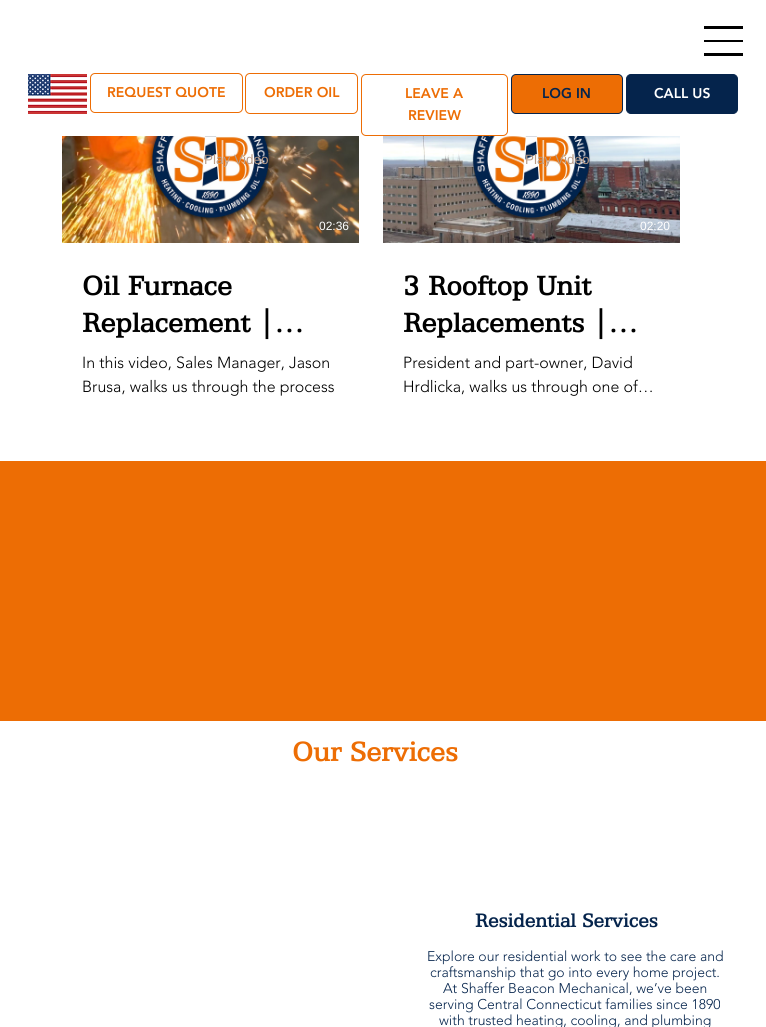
import math
import cairo

surface = cairo.ImageSurface(cairo.Format.RGB24, 766, 1027)
ctx = cairo.Context(surface)
options = cairo.FontOptions()
options.set_hint_metrics(cairo.HintMetrics.OFF)
options.set_hint_style(cairo.HintStyle.NONE)
ctx.set_font_options(options)
ctx.set_miter_limit(4)


def ink(r, g, b):
    ctx.set_source_rgb(r / 255, g / 255, b / 255)


def write(x, y, s, family, size, color, bold=False, italic=False):
    ctx.select_font_face(family, cairo.FontSlant.ITALIC if italic else cairo.FontSlant.NORMAL, cairo.FontWeight.BOLD if bold else cairo.FontWeight.NORMAL)
    ctx.set_font_size(size)
    ink(*color)
    ctx.move_to(x, y)
    ctx.show_text(s)


def block(x, y, w, h, *color):
    ink(*color)
    ctx.rectangle(x, y, w, h)
    ctx.fill()


def round_path(x, y, w, h, r):
    ctx.new_sub_path()
    for i, (u, v) in enumerate([(x + w - r, y + h - r), (x + r, y + h - r), (x + r, y + r), (x + w - r, y + r)]):
        ctx.arc(u, v, r, i * math.pi / 2, (i + 1) * math.pi / 2)
    ctx.close_path()


def paste(path, x, y, w, h):
    ctx.save()
    ctx.set_source_surface(cairo.ImageSurface.create_from_png(path), x, y)
    ctx.rectangle(x, y, w, h)
    ctx.fill()
    ctx.restore()


s1 = dict(family="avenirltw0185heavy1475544 Black", size=14, color=(237, 109, 4))
s2 = dict(family="avenirltw0185heavy1475544 Black", size=14, color=(5, 36, 76))
s3 = dict(family="avenirltw0185heavy1475544 Black", size=14, color=(255, 255, 255))
s4 = dict(family="Liberation Sans", size=13.5, color=(186, 156, 134))
s5 = dict(family="Liberation Sans", size=12, color=(255, 255, 255))
s6 = dict(family="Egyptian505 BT", size=30, color=(0, 0, 0), bold=True)
s7 = dict(family="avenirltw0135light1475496 Light", size=16, color=(0, 0, 0))
s8 = dict(family="Egyptian505 BT", size=30, color=(237, 109, 4), bold=True)
s9 = dict(family="Egyptian505 BT", size=21, color=(5, 36, 76), bold=True)
s10 = dict(family="avenirltw0135light1475496 Light", size=14, color=(5, 36, 76))

ink(255, 255, 255)
ctx.paint()
ctx.save()
ctx.rectangle(704, 21, 39, 40)
ctx.clip()
ink(0, 0, 0)
ctx.set_fill_rule(cairo.FillRule.EVEN_ODD)
ctx.new_path()
ctx.move_to(743, 29)
ctx.line_to(703, 29)
ctx.line_to(703, 26)
ctx.line_to(743, 26)
ctx.close_path()
ctx.move_to(743, 42)
ctx.line_to(703, 42)
ctx.line_to(703, 40)
ctx.line_to(743, 40)
ctx.close_path()
ctx.move_to(743, 56)
ctx.line_to(703, 56)
ctx.line_to(703, 53)
ctx.line_to(743, 53)
ctx.close_path()
ctx.fill()
ctx.restore()
paste("pic1.png", 28, 74, 59, 40)
round_path(90.5, 73.5, 152, 39, 4.5)
ink(237, 109, 4)
ctx.set_line_width(1)
ctx.stroke()
write(107, 97, "REQUEST QUOTE", **s1)
round_path(245.5, 73.5, 112, 40, 4.5)
ctx.stroke()
write(264, 97, "ORDER OIL", **s1)
round_path(361.5, 74.5, 146, 61, 4.5)
ctx.stroke()
write(405, 98, "LEAVE A", **s1)
write(408, 120, "REVIEW", **s1)
round_path(511.5, 74.5, 111, 39, 4.5)
ctx.fill_preserve()
ink(5, 36, 76)
ctx.stroke()
write(542, 98, "LOG IN", **s2)
round_path(626.5, 74.5, 111, 39, 4.5)
ctx.fill_preserve()
ctx.stroke()
write(654, 98, "CALL US", **s3)
paste("pic2.png", 62, 136, 297, 107)
write(204, 164, "Play Video", **s4)
write(319, 230, "02:36", **s5)
write(82, 295, "Oil Furnace", **s6)
write(82, 332, "Replacement |…", **s6)
write(82, 368, "In this video, Sales Manager, Jason", **s7)
write(82, 392, "Brusa, walks us through the process", **s7)
paste("pic3.png", 383, 136, 297, 107)
write(525, 164, "Play Video", **s4)
write(640, 230, "02:20", **s5)
write(403, 295, "3 Rooftop Unit", **s6)
write(403, 332, "Replacements |…", **s6)
write(403, 368, "President and part-owner, David", **s7)
write(403, 392, "Hrdlicka, walks us through one of…", **s7)
block(0, 461, 766, 260, 237, 109, 4)
write(292, 761, "Our Services", **s8)
write(475, 927, "Residential Services", **s9)
write(427, 961, "Explore our residential work to see the care and", **s10)
write(430, 977, "craftsmanship that go into every home project.", **s10)
write(443, 993, "At Shaffer Beacon Mechanical, we’ve been", **s10)
write(429, 1009, "serving Central Connecticut families since 1890", **s10)
write(439, 1025, "with trusted heating, cooling, and plumbing", **s10)
surface.write_to_png("screenshot.png")
